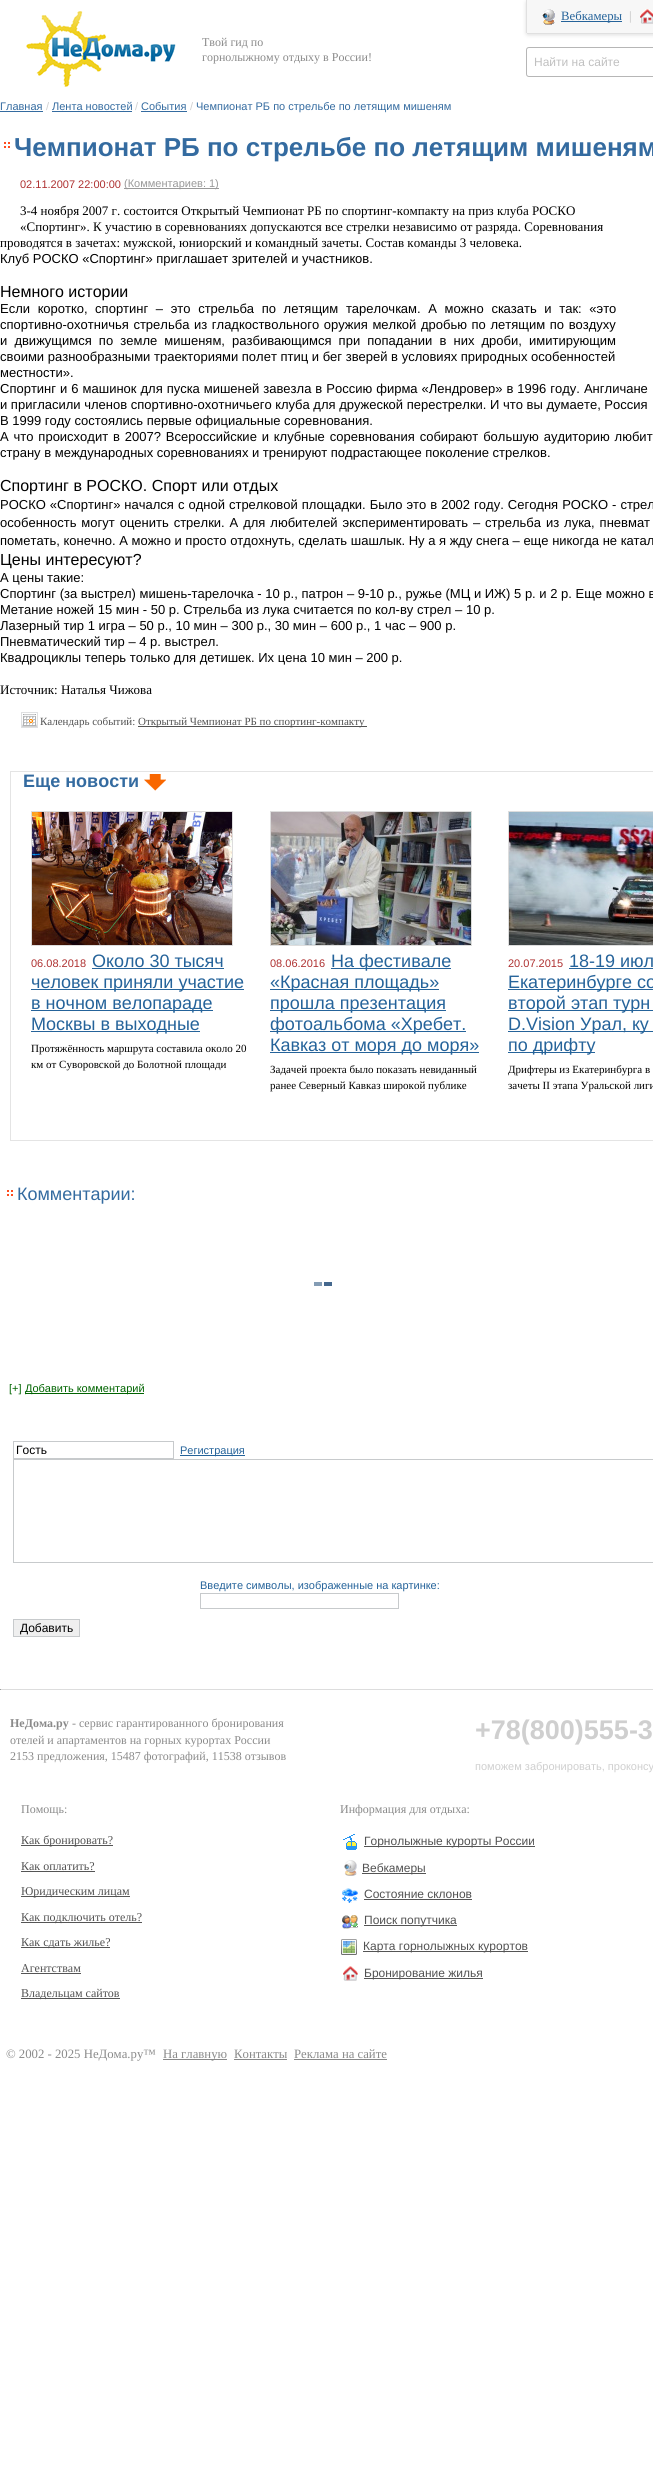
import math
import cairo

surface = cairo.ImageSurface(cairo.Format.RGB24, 653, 2475)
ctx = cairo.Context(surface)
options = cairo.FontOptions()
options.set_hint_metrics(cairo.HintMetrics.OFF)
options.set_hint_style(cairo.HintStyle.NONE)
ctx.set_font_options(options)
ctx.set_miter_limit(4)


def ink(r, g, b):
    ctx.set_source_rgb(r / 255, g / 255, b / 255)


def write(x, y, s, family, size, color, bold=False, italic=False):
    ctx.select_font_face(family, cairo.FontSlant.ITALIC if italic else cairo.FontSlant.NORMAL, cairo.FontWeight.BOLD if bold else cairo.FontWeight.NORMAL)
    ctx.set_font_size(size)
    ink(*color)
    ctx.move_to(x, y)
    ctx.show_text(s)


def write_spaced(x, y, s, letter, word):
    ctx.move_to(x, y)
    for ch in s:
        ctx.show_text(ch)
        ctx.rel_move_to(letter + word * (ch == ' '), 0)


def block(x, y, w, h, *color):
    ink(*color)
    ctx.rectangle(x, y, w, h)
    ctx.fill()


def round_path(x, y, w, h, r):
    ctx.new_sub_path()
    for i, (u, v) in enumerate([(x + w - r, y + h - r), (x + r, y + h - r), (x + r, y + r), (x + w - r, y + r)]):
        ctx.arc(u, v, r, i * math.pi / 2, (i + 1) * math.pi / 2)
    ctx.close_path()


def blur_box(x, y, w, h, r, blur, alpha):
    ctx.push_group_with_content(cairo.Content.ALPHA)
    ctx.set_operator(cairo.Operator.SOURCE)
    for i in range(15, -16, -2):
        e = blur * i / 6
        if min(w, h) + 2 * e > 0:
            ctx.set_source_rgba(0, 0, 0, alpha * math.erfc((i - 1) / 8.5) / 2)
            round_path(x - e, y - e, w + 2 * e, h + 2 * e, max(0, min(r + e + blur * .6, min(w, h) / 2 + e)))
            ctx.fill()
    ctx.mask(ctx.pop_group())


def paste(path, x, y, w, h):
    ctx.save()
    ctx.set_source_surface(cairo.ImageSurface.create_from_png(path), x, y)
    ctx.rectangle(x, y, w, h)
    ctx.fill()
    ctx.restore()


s1 = dict(family="Liberation Serif", size=12, color=(138, 138, 138))
s2 = dict(family="Liberation Serif", size=12.75, color=(37, 99, 154))
s3 = dict(family="Liberation Serif", size=12.75, color=(192, 192, 192))
s4 = dict(family="Liberation Sans", size=12, color=(192, 192, 192))
s5 = dict(family="Liberation Sans", size=11, color=(52, 107, 160))
s6 = dict(family="Liberation Sans", size=11, color=(207, 207, 207))
s7 = dict(family="Liberation Sans", size=26, color=(52, 107, 160), bold=True)
s8 = dict(family="Liberation Sans", size=11, color=(174, 48, 48))
s9 = dict(family="Liberation Sans", size=11, color=(153, 153, 153))
s10 = dict(family="Liberation Serif", size=13, color=(0, 0, 0))
s11 = dict(family="Liberation Sans", size=13, color=(0, 0, 0))
s12 = dict(family="Liberation Sans", size=16, color=(0, 0, 0))
s13 = dict(family="Liberation Serif", size=11, color=(82, 82, 82))
s14 = dict(family="Liberation Sans", size=18, color=(52, 107, 160), bold=True)
s15 = dict(family="Liberation Sans", size=18, color=(37, 99, 154))
s16 = dict(family="Liberation Serif", size=11, color=(0, 0, 0))
s17 = dict(family="Liberation Sans", size=18, color=(52, 107, 160))
s18 = dict(family="Liberation Sans", size=11, color=(0, 100, 0))
s19 = dict(family="Liberation Sans", size=12, color=(0, 0, 0))
s20 = dict(family="Liberation Sans", size=11, color=(37, 99, 154))
s21 = dict(family="Liberation Serif", size=12, color=(138, 138, 138), bold=True)
s22 = dict(family="Liberation Sans", size=27, color=(207, 207, 207), bold=True)
s23 = dict(family="Liberation Serif", size=12, color=(82, 82, 82))
s24 = dict(family="Liberation Sans", size=12, color=(82, 82, 82))
s25 = dict(family="Liberation Serif", size=12.75, color=(138, 138, 138))

ink(255, 255, 255)
ctx.paint()
paste("pic1.png", 26, 11, 150, 76)
write(202, 46, "Твой гид по", **s1)
write(202, 61, "горнолыжному отдыху в России!", **s1)
ink(222, 222, 222)
blur_box(526, 1, 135, 34, 2, 2, 1)
ink(247, 247, 247)
ctx.new_path()
ctx.move_to(526, 0)
ctx.line_to(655, 0)
ctx.line_to(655, 32)
ctx.curve_to(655, 33, 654, 34, 653, 34)
ctx.line_to(528, 34)
ctx.curve_to(527, 34, 526, 33, 526, 32)
ctx.close_path()
ctx.fill()
block(527, 33, 126, 1, 224, 224, 224)
block(526, 0, 1, 33, 224, 224, 224)
paste("pic2.png", 542, 9, 13, 16)
block(561, 21, 61, 1, 37, 99, 154)
write(561, 20, "Вебкамеры", **s2)
write(629, 20, "|", **s3)
paste("pic3.png", 640, 9, 13, 15)
ctx.new_path()
ctx.move_to(529, 47.5)
ctx.line_to(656.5, 47.5)
ctx.line_to(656.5, 76.5)
ctx.line_to(529, 76.5)
ctx.curve_to(527.5, 76.5, 526.5, 75.5, 526.5, 74)
ctx.line_to(526.5, 50)
ctx.curve_to(526.5, 48.5, 527.5, 47.5, 529, 47.5)
ctx.close_path()
ink(182, 182, 182)
ctx.set_line_width(1)
ctx.stroke()
write(534, 66, "Найти на сайте", **s4)
write(0, 110, "Главная", **s5)
block(0, 111, 43, 1, 52, 107, 160)
write(46, 110, "/", **s6)
write(52, 110, "Лента новостей", **s5)
block(52, 111, 80, 1, 52, 107, 160)
write(135, 110, "/", **s6)
write(141, 110, "События", **s5)
block(141, 111, 46, 1, 52, 107, 160)
write(190, 110, "/", **s6)
write(196, 110, "Чемпионат РБ по стрельбе по летящим мишеням", **s5)
paste("pic4.png", 4, 142, 6, 6)
write(14, 156, "Чемпионат РБ по стрельбе по летящим мишеням", **s7)
write(20, 188, "02.11.2007 22:00:00", **s8)
block(124, 188, 95, 1, 153, 153, 153)
write(124, 187, "(Комментариев: 1)", **s9)
write(20, 215, "3-4 ноября 2007 г. состоится Открытый Чемпионат РБ по спортинг-компакту на приз клуба РОСКО", **s10)
write(20, 231, "«Спортинг». К участию в соревнованиях допускаются все стрелки независимо от разряда. Соревнования", **s10)
write(0, 247, "проводятся в зачетах: мужской, юниорский и командный зачеты. Состав команды 3 человека.", **s10)
write(0, 263, "Клуб РОСКО «Спортинг» приглашает зрителей и участников.", **s11)
write(0, 297, "Немного истории", **s12)
ctx.set_font_size(13)
write_spaced(0, 313, "Если коротко, спортинг – это стрельба по летящим тарелочкам. А можно сказать и так: «это", 0, 4)
write_spaced(0, 329, "спортивно-охотничья стрельба из гладкоствольного оружия мелкой дробью по летящим по воздуху", 0, 1)
write_spaced(0, 345, "и движущимся по земле мишеням, разбивающимся при попадании в них дроби, имитирующим", 0, 3.5)
write(0, 361, "своими разнообразными траекториями полет птиц и бег зверей в условиях природных особенностей", **s11)
write(0, 377, "местности».", **s11)
write_spaced(0, 393, "Спортинг и 6 машинок для пуска мишеней завезла в Россию фирма «Лендровер» в 1996 году. Англичане", 0, 0.4)
write(0, 409, "и пригласили членов спортивно-охотничьего клуба для дружеской перестрелки. И что вы думаете, Россия", **s11)
write(0, 425, "В 1999 году состоялись первые официальные соревнования.", **s11)
write_spaced(0, 441, "А что происходит в 2007? Всероссийские и клубные соревнования собирают большую аудиторию любит", 0, 1.25)
write(0, 457, "страну в международных соревнованиях и тренируют подрастающее поколение стрелков.", **s11)
write(0, 491, "Спортинг в РОСКО. Спорт или отдых", **s12)
ctx.set_font_size(13)
write_spaced(0, 509, "РОСКО «Спортинг» начался с одной стрелковой площадки. Было это в 2002 году. Сегодня РОСКО - стрел", 0, 0.4)
write_spaced(0, 527, "особенность могут оценить стрелки. А для любителей экспериментировать – стрельба из лука, пневмат", 0, 1.3)
write(0, 545, "пометать, конечно. А можно и просто отдохнуть, сделать шашлык. Ну а я жду снега – еще никогда не катал", **s11)
write(0, 565, "Цены интересуют?", **s12)
write(0, 582, "А цены такие:", **s11)
write(0, 598, "Спортинг (за выстрел) мишень-тарелочка - 10 р., патрон – 9-10 р., ружье (МЦ и ИЖ) 5 р. и 2 р. Еще можно в", **s11)
write(0, 614, "Метание ножей 15 мин - 50 р. Стрельба из лука считается по кол-ву стрел – 10 р.", **s11)
write(0, 630, "Лазерный тир 1 игра – 50 р., 10 мин – 300 р., 30 мин – 600 р., 1 час – 900 р.", **s11)
write(0, 646, "Пневматический тир – 4 р. выстрел.", **s11)
write(0, 662, "Квадроциклы теперь только для детишек. Их цена 10 мин – 200 р.", **s11)
write(0, 694, "Источник: Наталья Чижова", **s10)
paste("pic5.png", 21, 712, 17, 16)
write(40, 725, "Календарь событий:", **s13)
block(138, 726, 229, 1, 82, 82, 82)
write(138, 725, "Открытый Чемпионат РБ по спортинг-компакту", **s13)
ctx.rectangle(10.5, 771.5, 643, 369)
ink(228, 228, 228)
ctx.stroke()
write(23, 787, "Еще новости", **s14)
paste("pic6.png", 144, 774, 22, 17)
ctx.rectangle(31.5, 811.5, 201, 134)
ink(221, 221, 221)
ctx.stroke()
paste("pic7.png", 32, 812, 200, 133)
write(31, 967, "06.08.2018", **s8)
write(92, 967, "Около 30 тысяч", **s15)
block(92, 968, 132, 1, 37, 99, 154)
block(31, 989, 213, 1, 37, 99, 154)
write(31, 988, "человек приняли участие", **s15)
block(31, 1010, 182, 1, 37, 99, 154)
write(31, 1009, "в ночном велопараде", **s15)
block(31, 1031, 169, 1, 37, 99, 154)
write(31, 1030, "Москвы в выходные", **s15)
write(31, 1052, "Протяжённость маршрута составила около 20", **s16)
write(31, 1068, "км от Суворовской до Болотной площади", **s16)
ctx.rectangle(270.5, 811.5, 201, 134)
ink(221, 221, 221)
ctx.stroke()
paste("pic8.png", 271, 812, 200, 133)
write(270, 967, "08.06.2016", **s8)
block(331, 968, 120, 1, 37, 99, 154)
write(331, 967, "На фестивале", **s15)
block(270, 989, 169, 1, 37, 99, 154)
write(270, 988, "«Красная площадь»", **s15)
block(270, 1010, 176, 1, 37, 99, 154)
write(270, 1009, "прошла презентация", **s15)
block(270, 1031, 196, 1, 37, 99, 154)
write(270, 1030, "фотоальбома «Хребет.", **s15)
block(270, 1052, 209, 1, 37, 99, 154)
write(270, 1051, "Кавказ от моря до моря»", **s15)
write(270, 1073, "Задачей проекта было показать невиданный", **s16)
write(270, 1089, "ранее Северный Кавказ широкой публике", **s16)
ctx.rectangle(508.5, 811.5, 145, 134)
ink(221, 221, 221)
ctx.stroke()
paste("pic9.png", 509, 812, 144, 133)
write(508, 967, "20.07.2015", **s8)
write(569, 967, "18-19 июл", **s15)
block(569, 968, 84, 1, 37, 99, 154)
block(508, 989, 145, 1, 37, 99, 154)
write(508, 988, "Екатеринбурге со", **s15)
block(508, 1010, 145, 1, 37, 99, 154)
write(508, 1009, "второй этап турн", **s15)
block(508, 1031, 145, 1, 37, 99, 154)
write(508, 1030, "D.Vision Урал, ку", **s15)
block(508, 1052, 87, 1, 37, 99, 154)
write(508, 1051, "по дрифту", **s15)
write(508, 1073, "Дрифтеры из Екатеринбурга в", **s16)
write(508, 1089, "зачеты II этапа Уральской лиги", **s16)
paste("pic4.png", 7, 1190, 6, 6)
write(17, 1200, "Комментарии:", **s17)
paste("pic10.png", 314, 1282, 18, 4)
write(9, 1392, "[+]", **s18)
block(25, 1393, 119, 1, 0, 100, 0)
write(25, 1392, "Добавить комментарий", **s18)
ctx.rectangle(13.5, 1441.5, 160, 17)
ink(199, 202, 204)
ctx.stroke()
write(16, 1454, "Гость", **s19)
block(180, 1455, 65, 1, 37, 99, 154)
write(180, 1454, "Регистрация", **s20)
ctx.rectangle(13.5, 1459.5, 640, 103)
ink(199, 202, 204)
ctx.stroke()
write(200, 1589, "Введите символы, изображенные на картинке:", **s20)
ctx.rectangle(200.5, 1593.5, 198, 15)
ink(199, 202, 204)
ctx.stroke()
ink(239, 239, 239)
ctx.rectangle(13.5, 1619.5, 66, 17)
ctx.fill_preserve()
ink(199, 202, 204)
ctx.stroke()
write(20, 1632, "Добавить", **s19)
block(0, 1689, 653, 1, 221, 221, 221)
block(0, 1689, 1, 1, 159, 159, 159)
write(10, 1727, "НеДома.ру", **s21)
write(72, 1727, "- сервис гарантированного бронирования", **s1)
write(10, 1744, "отелей и апартаментов на горных курортах России", **s1)
write(10, 1760, "2153 предложения, 15487 фотографий, 11538 отзывов", **s1)
write(475, 1739, "+78(800)555-3", **s22)
write(475, 1770, "поможем забронировать, проконсу", **s6)
write(21, 1813, "Помощь:", **s1)
block(21, 1845, 92, 1, 85, 85, 85)
write(21, 1844, "Как бронировать?", **s23)
write(21, 1870, "Как оплатить?", **s23)
block(21, 1871, 74, 1, 85, 85, 85)
block(21, 1896, 109, 1, 85, 85, 85)
write(21, 1895, "Юридическим лицам", **s23)
block(21, 1922, 121, 1, 85, 85, 85)
write(21, 1921, "Как подключить отель?", **s23)
block(21, 1947, 89, 1, 85, 85, 85)
write(21, 1946, "Как сдать жилье?", **s23)
write(21, 1972, "Агентствам", **s23)
block(21, 1973, 60, 1, 85, 85, 85)
block(21, 1998, 99, 1, 85, 85, 85)
write(21, 1997, "Владельцам сайтов", **s23)
write(340, 1813, "Информация для отдыха:", **s1)
paste("pic11.png", 343, 1834, 14, 16)
block(364, 1846, 171, 1, 85, 85, 85)
write(364, 1845, "Горнолыжные курорты России", **s24)
paste("pic12.png", 344, 1860, 13, 16)
block(362, 1873, 64, 1, 85, 85, 85)
write(362, 1872, "Вебкамеры", **s24)
paste("pic13.png", 342, 1888, 16, 15)
write(364, 1898, "Состояние склонов", **s24)
block(364, 1899, 108, 1, 85, 85, 85)
paste("pic14.png", 342, 1915, 16, 14)
block(364, 1925, 93, 1, 85, 85, 85)
write(364, 1924, "Поиск попутчика", **s24)
paste("pic15.png", 341, 1939, 16, 16)
block(363, 1951, 165, 1, 85, 85, 85)
write(363, 1950, "Карта горнолыжных курортов", **s24)
paste("pic16.png", 343, 1966, 15, 15)
block(364, 1978, 119, 1, 85, 85, 85)
write(364, 1977, "Бронирование жилья", **s24)
write(6, 2058, "© 2002 - 2025 НеДома.ру™", **s25)
block(163, 2059, 64, 1, 136, 136, 136)
write(163, 2058, "На главную", **s25)
write(234, 2058, "Контакты", **s25)
block(234, 2059, 53, 1, 136, 136, 136)
write(294, 2058, "Реклама на сайте", **s25)
block(294, 2059, 93, 1, 136, 136, 136)
surface.write_to_png("screenshot.png")
